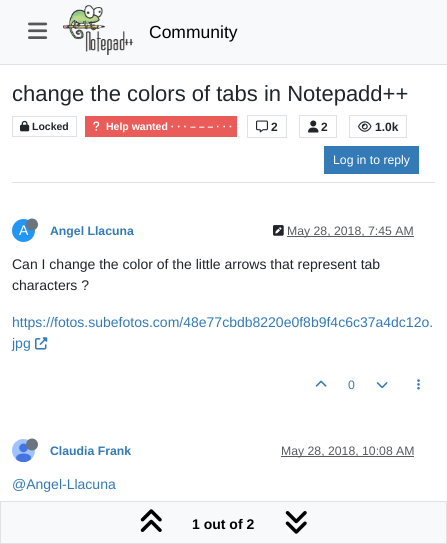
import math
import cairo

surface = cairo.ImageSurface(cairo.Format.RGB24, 447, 544)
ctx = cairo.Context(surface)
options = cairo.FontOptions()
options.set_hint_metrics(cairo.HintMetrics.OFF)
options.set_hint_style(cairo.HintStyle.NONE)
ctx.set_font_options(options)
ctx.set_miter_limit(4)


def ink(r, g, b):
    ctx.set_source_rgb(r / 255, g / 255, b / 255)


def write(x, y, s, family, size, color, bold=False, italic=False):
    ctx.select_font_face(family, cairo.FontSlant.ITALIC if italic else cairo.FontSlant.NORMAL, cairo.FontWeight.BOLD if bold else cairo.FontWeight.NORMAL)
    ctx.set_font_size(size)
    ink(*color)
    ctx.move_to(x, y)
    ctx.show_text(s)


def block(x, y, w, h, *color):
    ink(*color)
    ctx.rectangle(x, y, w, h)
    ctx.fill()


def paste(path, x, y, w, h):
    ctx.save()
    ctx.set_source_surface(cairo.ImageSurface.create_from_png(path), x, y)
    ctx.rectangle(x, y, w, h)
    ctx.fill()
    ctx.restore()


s1 = dict(family="Liberation Sans", size=17.5, color=(0, 0, 0))
s2 = dict(family="Liberation Sans", size=22, color=(33, 37, 41))
s3 = dict(family="Liberation Sans", size=10.5, color=(33, 37, 41), bold=True)
s4 = dict(family="Liberation Sans", size=10.5, color=(255, 255, 255), bold=True)
s5 = dict(family="Liberation Sans", size=12, color=(33, 37, 41), bold=True)
s6 = dict(family="Liberation Sans", size=12.25, color=(255, 255, 255))
s7 = dict(family="Liberation Sans", size=14, color=(255, 255, 255))
s8 = dict(family="Liberation Sans", size=12.25, color=(51, 122, 183), bold=True)
s9 = dict(family="Liberation Sans", size=12.25, color=(88, 91, 94))
s10 = dict(family="Liberation Sans", size=14, color=(33, 37, 41))
s11 = dict(family="Liberation Sans", size=14, color=(51, 122, 183))
s12 = dict(family="Liberation Sans", size=12.25, color=(51, 122, 183))
s13 = dict(family="Liberation Sans", size=14, color=(0, 0, 0), bold=True)

ink(255, 255, 255)
ctx.paint()
block(0, 0, 447, 64, 248, 249, 250)
block(0, 64, 447, 1, 222, 226, 230)
paste("pic1.png", 28, 22, 20, 17)
paste("pic2.png", 63, 5, 71, 50)
write(149, 38, "Community", **s1)
block(12, 182, 423, 1, 222, 226, 230)
write(12, 101, "change the colors of tabs in Notepadd++", **s2)
ctx.rectangle(12.5, 116.5, 64, 20)
ink(222, 226, 230)
ctx.set_line_width(1)
ctx.stroke()
paste("pic3.png", 20, 120, 10, 12)
write(32, 130, "Locked", **s3)
block(85, 116, 152, 21, 233, 92, 90)
paste("pic4.png", 93, 121, 7, 10)
write(106, 130, "Help wanted · · · – – – · · ·", **s4)
ctx.rectangle(247.5, 115.5, 39, 22)
ink(222, 226, 230)
ctx.stroke()
paste("pic5.png", 256, 120, 12, 13)
write(271, 131, "2", **s5)
ctx.rectangle(299.5, 115.5, 37, 22)
ink(222, 226, 230)
ctx.stroke()
paste("pic6.png", 308, 120, 11, 13)
write(321, 131, "2", **s5)
ctx.rectangle(349.5, 115.5, 57, 22)
ink(222, 226, 230)
ctx.stroke()
paste("pic7.png", 358, 121, 14, 11)
write(375, 131, "1.0k", **s5)
block(324, 146, 95, 28, 51, 122, 183)
write(333, 164, "Log in to reply", **s6)
ink(33, 150, 243)
ctx.new_path()
ctx.arc(23.5, 230.5, 11.5, 0, 2 * math.pi)
ctx.fill()
write(19, 235, "A", **s7)
paste("pic8.png", 26, 218, 12, 13)
write(50, 235, "Angel Llacuna", **s8)
paste("pic9.png", 273, 225, 11, 11)
block(287, 236, 127, 1, 89, 92, 95)
write(287, 235, "May 28, 2018, 7:45 AM", **s9)
write(12, 269, "Can I change the color of the little arrows that represent tab", **s10)
write(12, 290, "characters ?", **s10)
write(12, 327, "https://fotos.subefotos.com/48e77cbdb8220e0f8b9f4c6c37a4dc12o.", **s11)
write(12, 348, "jpg", **s11)
paste("pic10.png", 35, 337, 13, 13)
paste("pic11.png", 315, 380, 12, 7)
write(348, 389, "0", **s12)
paste("pic12.png", 376, 382, 12, 7)
paste("pic13.png", 417, 379, 3, 11)
paste("pic15.png", 12, 439, 23, 23)
paste("pic14.png", 26, 438, 12, 13)
write(50, 455, "Claudia Frank", **s8)
block(281, 456, 133, 1, 89, 92, 95)
write(281, 455, "May 28, 2018, 10:08 AM", **s9)
write(12, 489, "@Angel-Llacuna", **s11)
ink(248, 249, 250)
ctx.rectangle(0.5, 501.5, 446, 42)
ctx.fill_preserve()
ink(222, 226, 230)
ctx.stroke()
paste("pic16.png", 140, 509, 22, 23)
write(192, 529, "1 out of 2", **s13)
paste("pic17.png", 285, 511, 22, 23)
surface.write_to_png("screenshot.png")
